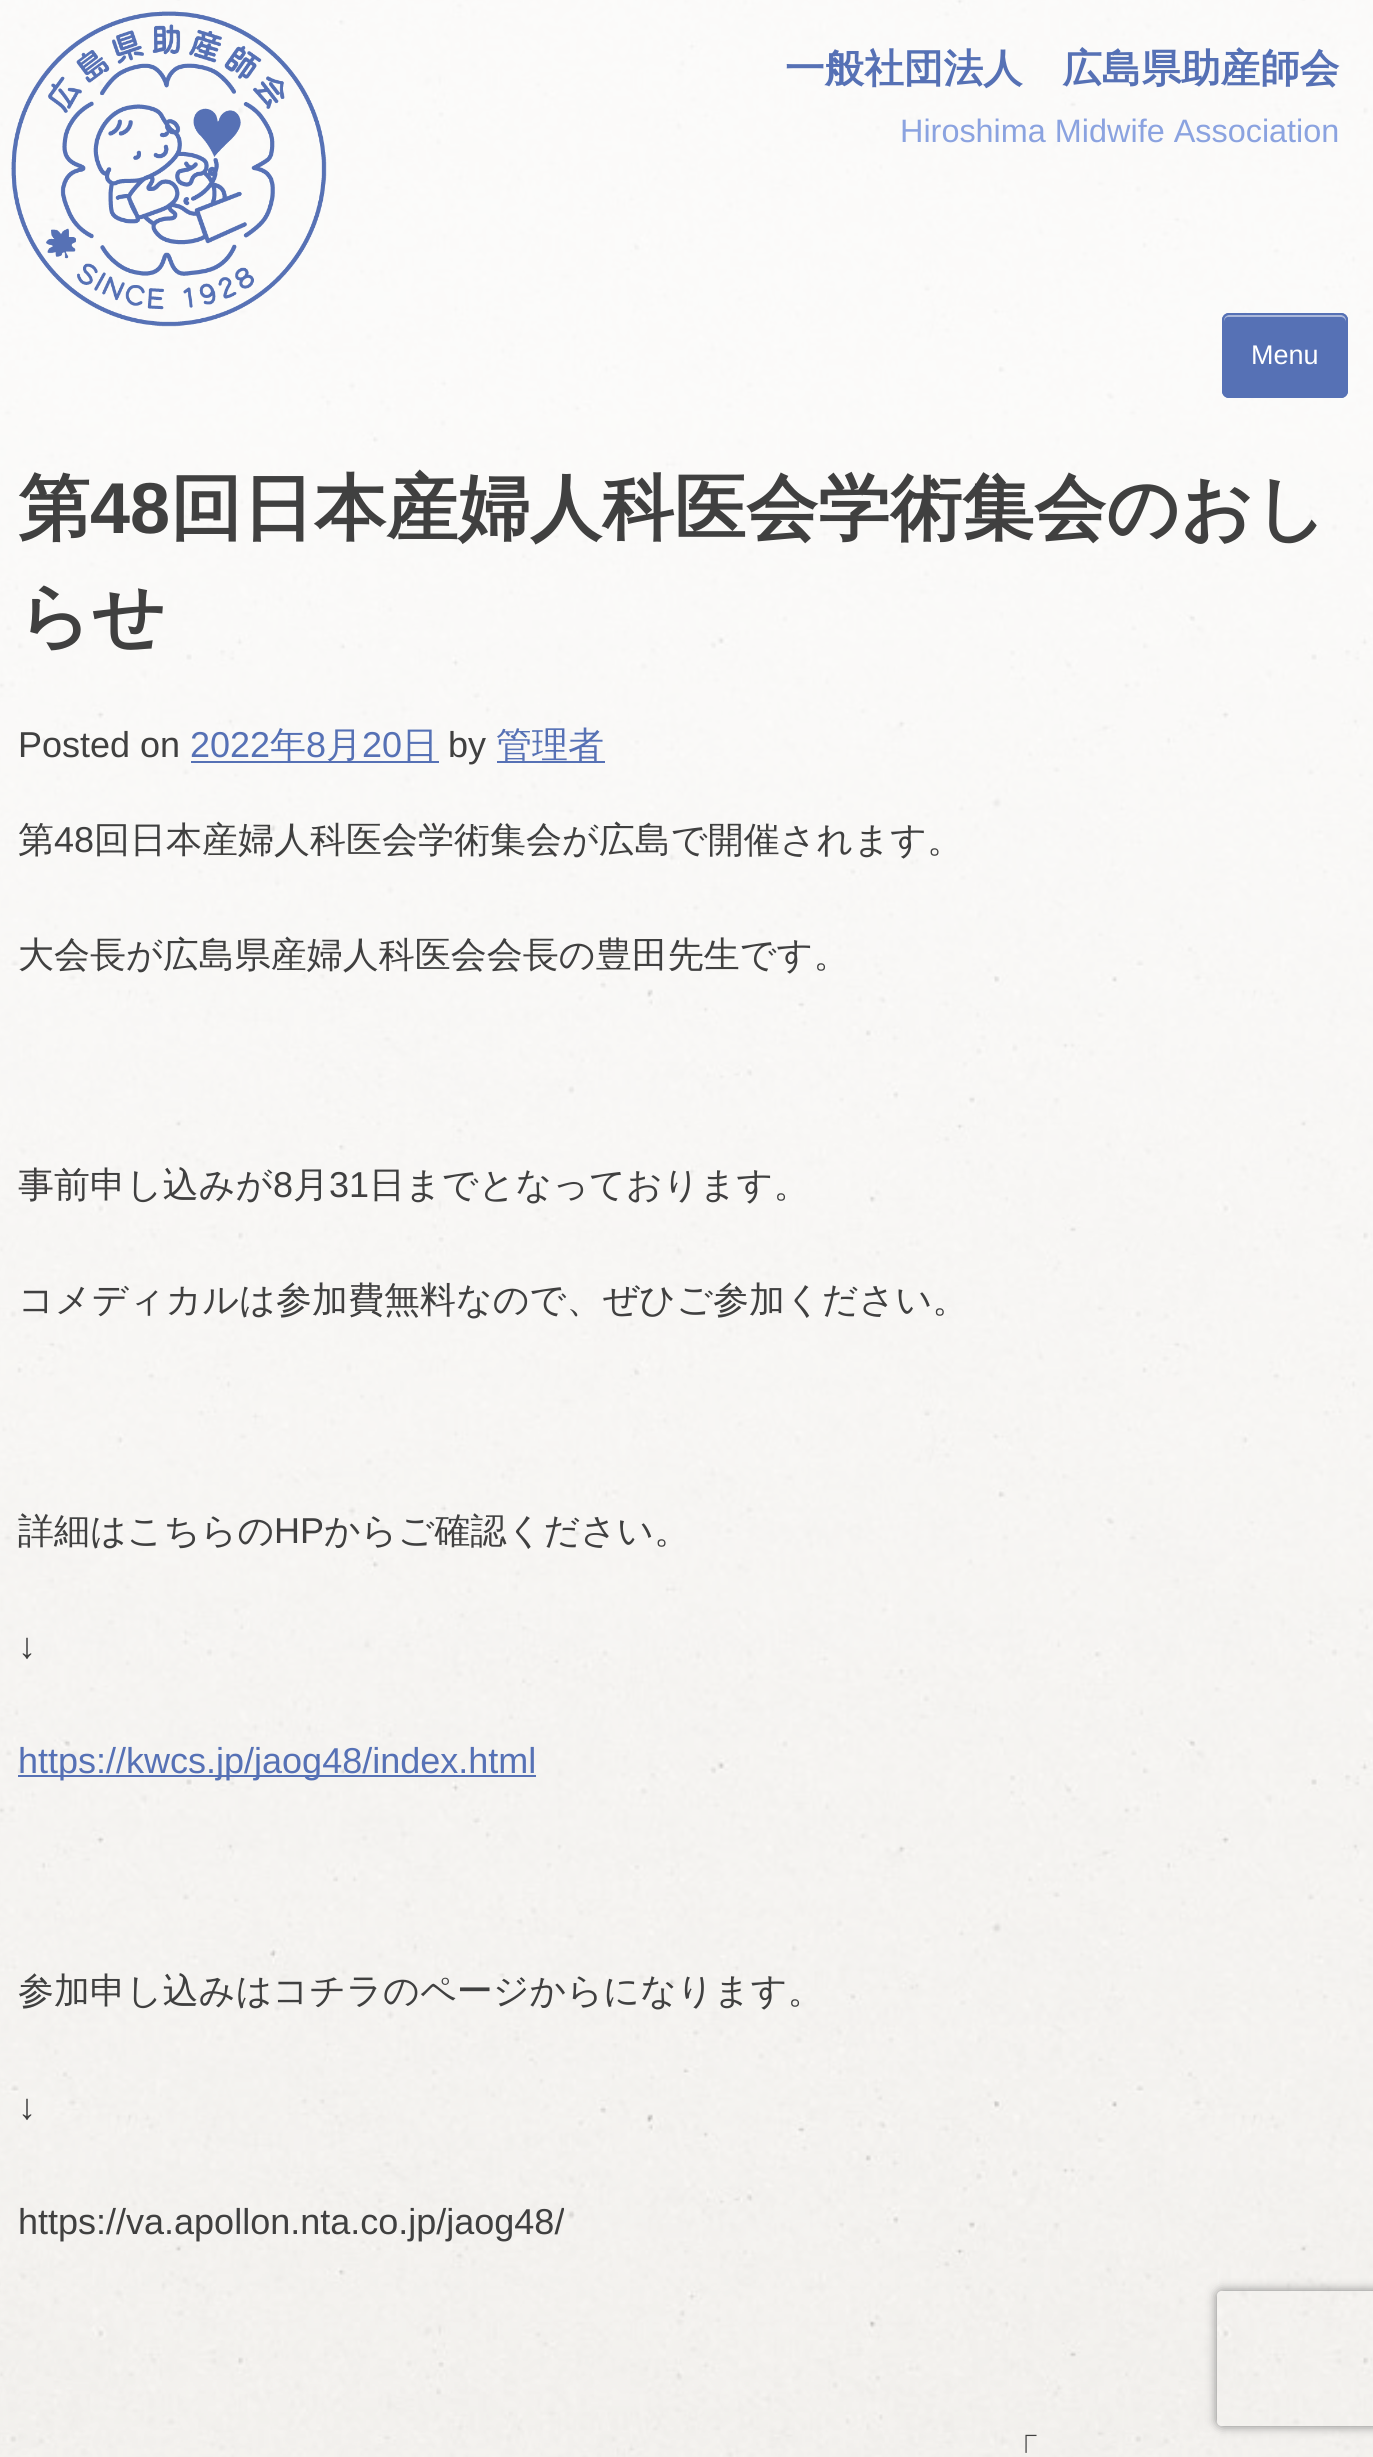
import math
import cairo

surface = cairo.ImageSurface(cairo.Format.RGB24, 1373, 2457)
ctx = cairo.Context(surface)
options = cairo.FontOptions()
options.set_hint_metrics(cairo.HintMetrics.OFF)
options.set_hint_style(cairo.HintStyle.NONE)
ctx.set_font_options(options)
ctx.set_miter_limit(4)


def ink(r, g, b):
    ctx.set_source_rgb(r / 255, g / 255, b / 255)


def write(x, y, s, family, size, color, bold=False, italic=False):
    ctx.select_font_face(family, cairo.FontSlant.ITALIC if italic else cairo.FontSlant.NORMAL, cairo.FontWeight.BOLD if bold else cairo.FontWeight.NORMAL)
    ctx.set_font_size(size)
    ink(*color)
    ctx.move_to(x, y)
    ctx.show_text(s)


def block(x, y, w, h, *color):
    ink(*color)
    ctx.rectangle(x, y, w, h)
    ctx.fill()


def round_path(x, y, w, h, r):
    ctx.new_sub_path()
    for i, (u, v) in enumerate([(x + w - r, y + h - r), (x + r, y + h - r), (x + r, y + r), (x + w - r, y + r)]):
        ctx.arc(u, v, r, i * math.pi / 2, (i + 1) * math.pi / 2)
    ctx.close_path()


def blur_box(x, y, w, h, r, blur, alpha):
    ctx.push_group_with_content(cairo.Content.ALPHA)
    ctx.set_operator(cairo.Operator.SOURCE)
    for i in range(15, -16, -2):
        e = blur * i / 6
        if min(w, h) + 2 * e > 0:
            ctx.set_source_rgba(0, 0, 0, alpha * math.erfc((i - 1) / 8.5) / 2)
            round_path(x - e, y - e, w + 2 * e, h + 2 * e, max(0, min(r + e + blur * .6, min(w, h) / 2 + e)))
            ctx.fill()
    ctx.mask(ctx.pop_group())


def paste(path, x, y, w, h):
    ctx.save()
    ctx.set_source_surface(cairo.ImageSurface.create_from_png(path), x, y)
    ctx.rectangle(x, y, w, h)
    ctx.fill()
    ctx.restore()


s1 = dict(family="WenQuanYi Zen Hei", size=39.6, color=(86, 113, 181), bold=True)
s2 = dict(family="Liberation Sans", size=32.4, color=(139, 163, 224))
s3 = dict(family="Liberation Sans", size=27, color=(255, 255, 255))
s4 = dict(family="WenQuanYi Zen Hei", size=72, color=(64, 64, 64), bold=True)
s5 = dict(family="Liberation Sans", size=72, color=(64, 64, 64), bold=True)
s6 = dict(family="Liberation Sans", size=36, color=(64, 64, 64))
s7 = dict(family="Liberation Sans", size=36, color=(86, 113, 181))
s8 = dict(family="WenQuanYi Zen Hei Medium", size=36, color=(86, 113, 181))
s9 = dict(family="WenQuanYi Zen Hei Medium", size=36, color=(64, 64, 64))

ink(255, 255, 255)
ctx.paint()
paste("pic1.png", 0, 0, 1373, 2457)
ctx.set_source_rgba(1, 1, 1, 0.8)
ctx.rectangle(0, 0, 1373, 407)
ctx.fill()
paste("pic2.png", 11, 11, 316, 316)
write(785, 82, "一般社団法人　広島県助産師会", **s1)
write(900, 142, "Hiroshima Midwife Association", **s2)
ink(86, 113, 181)
round_path(1222, 313, 126, 85, 7)
ctx.fill()
ink(171, 184, 218)
ctx.new_path()
ctx.move_to(1228, 317)
ctx.line_to(1341, 317)
ctx.curve_to(1343, 317, 1346, 319, 1346, 322)
ctx.line_to(1346, 320)
ctx.curve_to(1346, 317, 1344, 315, 1341, 315)
ctx.line_to(1229, 315)
ctx.curve_to(1226, 315, 1224, 317, 1224, 320)
ctx.line_to(1224, 322)
ctx.curve_to(1224, 319, 1226, 317, 1228, 317)
ctx.close_path()
ctx.fill()
round_path(1223, 314, 124, 83, 6)
ink(86, 113, 181)
ctx.stroke()
write(1251, 364, "Menu", **s3)
write(18, 533, "第", **s4)
write(90, 533, "48", **s5)
write(170, 533, "回日本産婦人科医会学術集会のおし", **s4)
write(18, 641, "らせ", **s4)
write(18, 757, "Posted on", **s6)
write(190, 757, "2022", **s7)
block(191, 761, 248, 2, 86, 113, 181)
write(270, 757, "年", **s8)
write(306, 757, "8", **s7)
write(326, 757, "月", **s8)
write(362, 757, "20", **s7)
write(402, 757, "日", **s8)
write(448, 757, "by", **s6)
block(497, 761, 108, 2, 86, 113, 181)
write(496, 757, "管理者", **s8)
write(18, 852, "第", **s9)
write(54, 852, "48", **s6)
write(94, 852, "回日本産婦人科医会学術集会が広島で開催されます。", **s9)
write(18, 967, "大会長が広島県産婦人科医会会長の豊田先生です。", **s9)
write(18, 1197, "事前申し込みが", **s9)
write(273, 1197, "8", **s6)
write(293, 1197, "月", **s9)
write(329, 1197, "31", **s6)
write(369, 1197, "日までとなっております。", **s9)
write(18, 1312, "コメディカルは参加費無料なので、ぜひご参加ください。", **s9)
write(18, 1543, "詳細はこちらの", **s9)
write(274, 1543, "HP", **s6)
write(324, 1543, "からご確認ください。", **s9)
write(18, 1658, "↓", **s6)
block(18, 1775, 518, 2, 86, 113, 181)
write(18, 1773, "https://kwcs.jp/jaog48/index.html", **s7)
write(18, 2003, "参加申し込みはコチラのページからになります。", **s9)
write(18, 2119, "↓", **s6)
write(18, 2234, "https://va.apollon.nta.co.jp/jaog48/", **s6)
write(1004, 2464, "「", **s9)
ctx.save()
ctx.set_fill_rule(cairo.FillRule.EVEN_ODD)
ctx.new_path()
ctx.move_to(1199, 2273)
ctx.line_to(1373, 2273)
ctx.line_to(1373, 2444)
ctx.line_to(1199, 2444)
ctx.close_path()
ctx.move_to(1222, 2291)
ctx.line_to(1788, 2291)
ctx.curve_to(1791, 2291, 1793, 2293, 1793, 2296)
ctx.line_to(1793, 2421)
ctx.curve_to(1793, 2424, 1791, 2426, 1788, 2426)
ctx.line_to(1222, 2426)
ctx.curve_to(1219, 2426, 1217, 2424, 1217, 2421)
ctx.line_to(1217, 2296)
ctx.curve_to(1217, 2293, 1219, 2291, 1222, 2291)
ctx.close_path()
ctx.clip()
ink(128, 128, 128)
blur_box(1217, 2291, 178, 135, 5, 5.5, 1)
ctx.restore()
surface.write_to_png("screenshot.png")
